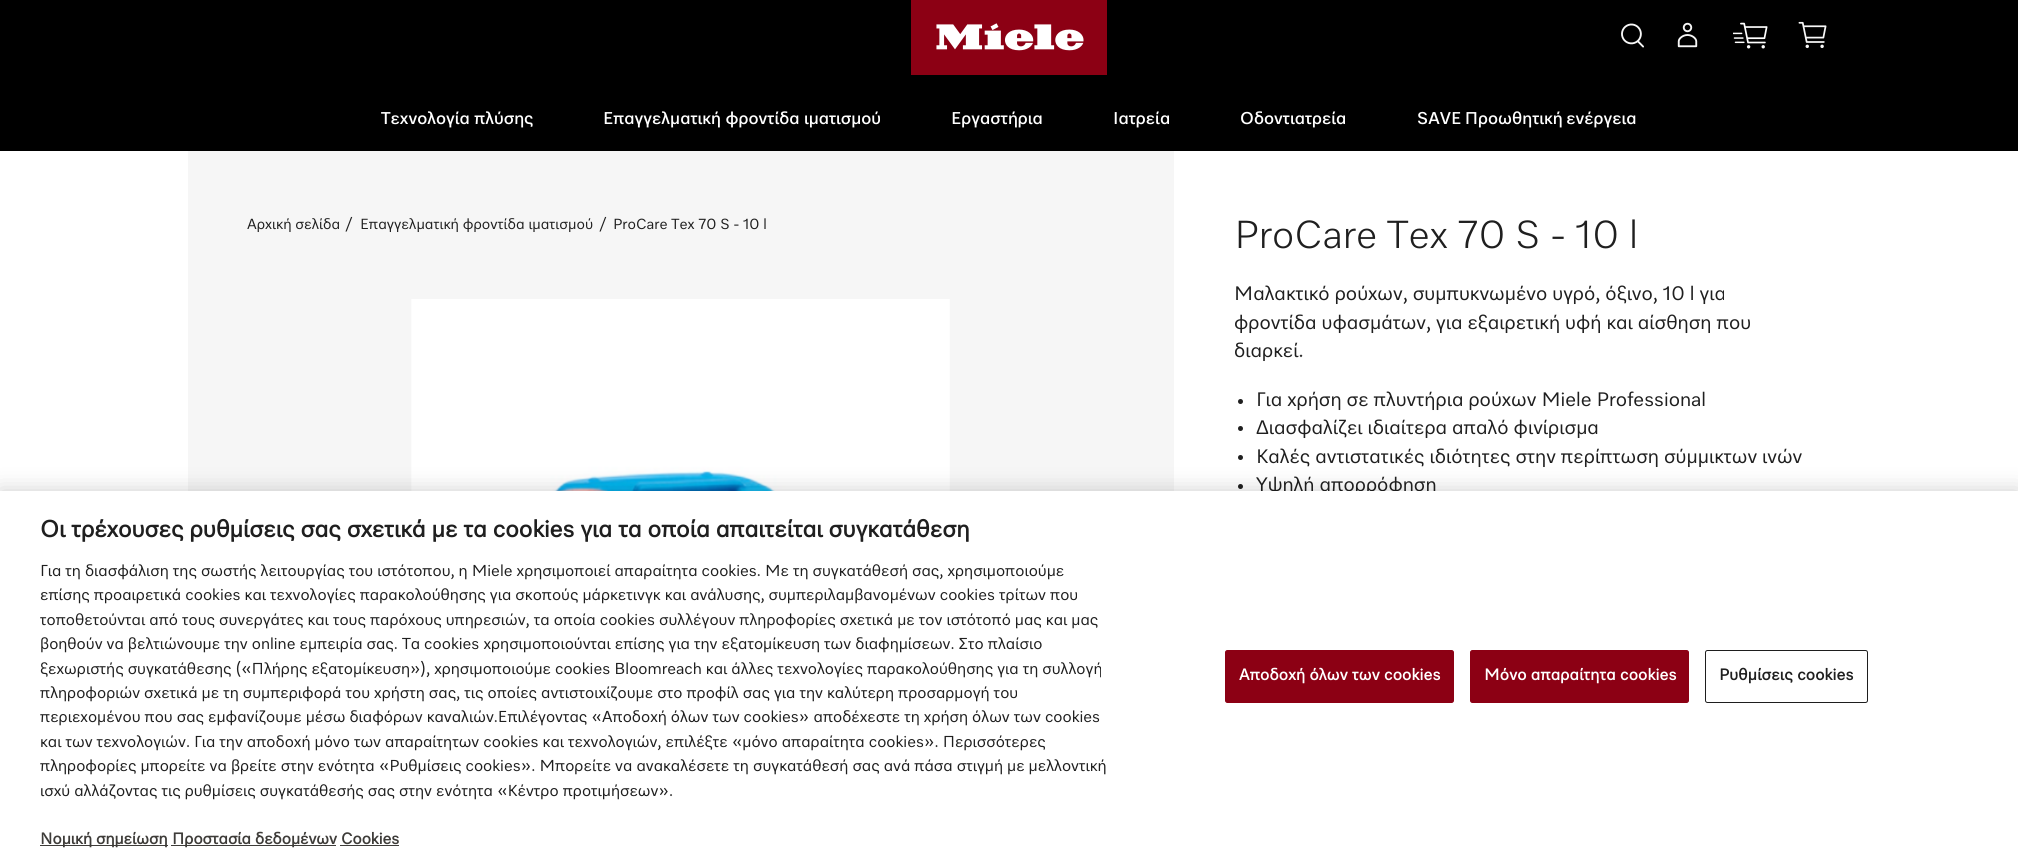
import math
import cairo

surface = cairo.ImageSurface(cairo.Format.RGB24, 2018, 865)
ctx = cairo.Context(surface)
options = cairo.FontOptions()
options.set_hint_metrics(cairo.HintMetrics.OFF)
options.set_hint_style(cairo.HintStyle.NONE)
ctx.set_font_options(options)
ctx.set_miter_limit(4)


def ink(r, g, b):
    ctx.set_source_rgb(r / 255, g / 255, b / 255)


def write(x, y, s, family, size, color, bold=False, italic=False):
    ctx.select_font_face(family, cairo.FontSlant.ITALIC if italic else cairo.FontSlant.NORMAL, cairo.FontWeight.BOLD if bold else cairo.FontWeight.NORMAL)
    ctx.set_font_size(size)
    ink(*color)
    ctx.move_to(x, y)
    ctx.show_text(s)


def write_spaced(x, y, s, letter, word):
    ctx.move_to(x, y)
    for ch in s:
        ctx.show_text(ch)
        ctx.rel_move_to(letter + word * (ch == ' '), 0)


def block(x, y, w, h, *color):
    ink(*color)
    ctx.rectangle(x, y, w, h)
    ctx.fill()


def round_path(x, y, w, h, r):
    ctx.new_sub_path()
    for i, (u, v) in enumerate([(x + w - r, y + h - r), (x + r, y + h - r), (x + r, y + r), (x + w - r, y + r)]):
        ctx.arc(u, v, r, i * math.pi / 2, (i + 1) * math.pi / 2)
    ctx.close_path()


def blur_box(x, y, w, h, r, blur, alpha):
    ctx.push_group_with_content(cairo.Content.ALPHA)
    ctx.set_operator(cairo.Operator.SOURCE)
    for i in range(15, -16, -2):
        e = blur * i / 6
        if min(w, h) + 2 * e > 0:
            ctx.set_source_rgba(0, 0, 0, alpha * math.erfc((i - 1) / 8.5) / 2)
            round_path(x - e, y - e, w + 2 * e, h + 2 * e, max(0, min(r + e + blur * .6, min(w, h) / 2 + e)))
            ctx.fill()
    ctx.mask(ctx.pop_group())


def paste(path, x, y, w, h):
    ctx.save()
    ctx.set_source_surface(cairo.ImageSurface.create_from_png(path), x, y)
    ctx.rectangle(x, y, w, h)
    ctx.fill()
    ctx.restore()


s1 = dict(family="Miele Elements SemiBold", size=17.5, color=(255, 255, 255))
s2 = dict(family="Miele Elements", size=15, color=(31, 31, 31))
s3 = dict(family="Miele Elements", size=20, color=(31, 31, 31))
s4 = dict(family="Miele Elements", size=24, color=(31, 31, 31), bold=True)
s5 = dict(family="Miele Elements", size=16.25, color=(31, 31, 31))
s6 = dict(family="Miele Elements", size=16.25, color=(62, 60, 57), bold=True)

ink(0, 0, 0)
ctx.paint()
paste("pic1.png", 911, 0, 196, 75)
paste("pic2.png", 1621, 23, 23, 25)
paste("pic3.png", 1677, 22, 21, 26)
paste("pic4.png", 1733, 22, 35, 27)
paste("pic5.png", 1798, 21, 29, 28)
write(381, 124, "Τεχνολογία πλύσης", **s1)
write(603, 124, "Επαγγελματική φροντίδα ιματισμού", **s1)
write(951, 124, "Εργαστήρια", **s1)
write(1113, 124, "Ιατρεία", **s1)
write(1240, 124, "Οδοντιατρεία", **s1)
write_spaced(1417, 124, "SAVE Προωθητική ενέργεια", 0, -1)
block(0, 151, 2018, 340, 255, 255, 255)
block(188, 151, 986, 340, 246, 246, 246)
write(247, 229, "Αρχική σελίδα", **s2)
write(346, 229, "/", **s2)
write(360, 229, "Επαγγελματική φροντίδα ιματισμού", **s2)
write(600, 229, "/", **s2)
write(613, 229, "ProCare Tex 70 S - 10 l", **s2)
paste("pic6.png", 411, 299, 539, 192)
ctx.select_font_face("Miele Elements Light")
ctx.set_font_size(40)
write_spaced(1234, 248, "ProCare Tex 70 S - 10 l", 0, -0.25)
write(1234, 300, "Μαλακτικό ρούχων, συμπυκνωμένο υγρό, όξινο, 10 l για", **s3)
write(1234, 329, "φροντίδα υφασμάτων, για εξαιρετική υφή και αίσθηση που", **s3)
write(1234, 357, "διαρκεί.", **s3)
ctx.new_path()
ctx.arc(1240.5, 401.5, 2.5, 0, 2 * math.pi)
ctx.fill()
write(1256, 406, "Για χρήση σε πλυντήρια ρούχων Miele Professional", **s3)
ctx.new_path()
ctx.arc(1240.5, 428.5, 2.5, 0, 2 * math.pi)
ctx.fill()
write(1256, 434, "Διασφαλίζει ιδιαίτερα απαλό φινίρισμα", **s3)
ctx.new_path()
ctx.arc(1240.5, 457.5, 2.5, 0, 2 * math.pi)
ctx.fill()
write(1256, 463, "Καλές αντιστατικές ιδιότητες στην περίπτωση σύμμικτων ινών", **s3)
ctx.new_path()
ctx.arc(1240.5, 486.5, 2.5, 0, 2 * math.pi)
ctx.fill()
write(1256, 491, "Υψηλή απορρόφηση", **s3)
ink(0, 0, 0)
blur_box(0, 491, 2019, 374, 0, 11, 0.2)
block(0, 491, 2018, 374, 255, 255, 255)
write(40, 537, "Οι τρέχουσες ρυθμίσεις σας σχετικά με τα cookies για τα οποία απαιτείται συγκατάθεση", **s4)
write(40, 576, "Για τη διασφάλιση της σωστής λειτουργίας του ιστότοπου, η Miele χρησιμοποιεί απαραίτητα cookies. Με τη συγκατάθεσή σας, χρησιμοποιούμε", **s5)
write(40, 600, "επίσης προαιρετικά cookies και τεχνολογίες παρακολούθησης για σκοπούς μάρκετινγκ και ανάλυσης, συμπεριλαμβανομένων cookies τρίτων που", **s5)
write(40, 625, "τοποθετούνται από τους συνεργάτες και τους παρόχους υπηρεσιών, τα οποία cookies συλλέγουν πληροφορίες σχετικά με τον ιστότοπό μας και μας", **s5)
write(40, 649, "βοηθούν να βελτιώνουμε την online εμπειρία σας. Τα cookies χρησιμοποιούνται επίσης για την εξατομίκευση των διαφημίσεων. Στο πλαίσιο", **s5)
write(40, 674, "ξεχωριστής συγκατάθεσης («Πλήρης εξατομίκευση»), χρησιμοποιούμε cookies Bloomreach και άλλες τεχνολογίες παρακολούθησης για τη συλλογή", **s5)
write(40, 698, "πληροφοριών σχετικά με τη συμπεριφορά του χρήστη σας, τις οποίες αντιστοιχίζουμε στο προφίλ σας για την καλύτερη προσαρμογή του", **s5)
write(40, 722, "περιεχομένου που σας εμφανίζουμε μέσω διαφόρων καναλιών.Επιλέγοντας «Αποδοχή όλων των cookies» αποδέχεστε τη χρήση όλων των cookies", **s5)
write(40, 747, "και των τεχνολογιών. Για την αποδοχή μόνο των απαραίτητων cookies και τεχνολογιών, επιλέξτε «μόνο απαραίτητα cookies». Περισσότερες", **s5)
write(40, 771, "πληροφορίες μπορείτε να βρείτε στην ενότητα «Ρυθμίσεις cookies». Μπορείτε να ανακαλέσετε τη συγκατάθεσή σας ανά πάσα στιγμή με μελλοντική", **s5)
write(40, 796, "ισχύ αλλάζοντας τις ρυθμίσεις συγκατάθεσής σας στην ενότητα «Κέντρο προτιμήσεων».", **s5)
block(40, 845, 128, 1, 62, 60, 57)
write(40, 844, "Νομική σημείωση", **s6)
block(171, 845, 165, 1, 62, 60, 57)
write(172, 844, "Προστασία δεδομένων Cookies", **s6)
block(340, 845, 59, 1, 62, 60, 57)
ink(140, 0, 20)
round_path(1225.5, 650.5, 228, 52, 2)
ctx.fill_preserve()
ctx.set_line_width(1)
ctx.stroke()
ink(255, 255, 255)
write_spaced(1239, 680, "Αποδοχή όλων των cookies", 0.2, 0)
ink(140, 0, 20)
round_path(1470.5, 650.5, 218, 52, 2)
ctx.fill_preserve()
ctx.stroke()
ink(255, 255, 255)
write_spaced(1484, 680, "Μόνο απαραίτητα cookies", 0.2, 0)
round_path(1705.5, 650.5, 162, 52, 2)
ink(30, 30, 30)
ctx.stroke()
ink(31, 31, 31)
write_spaced(1719, 680, "Ρυθμίσεις cookies", 0.2, 0)
surface.write_to_png("screenshot.png")
